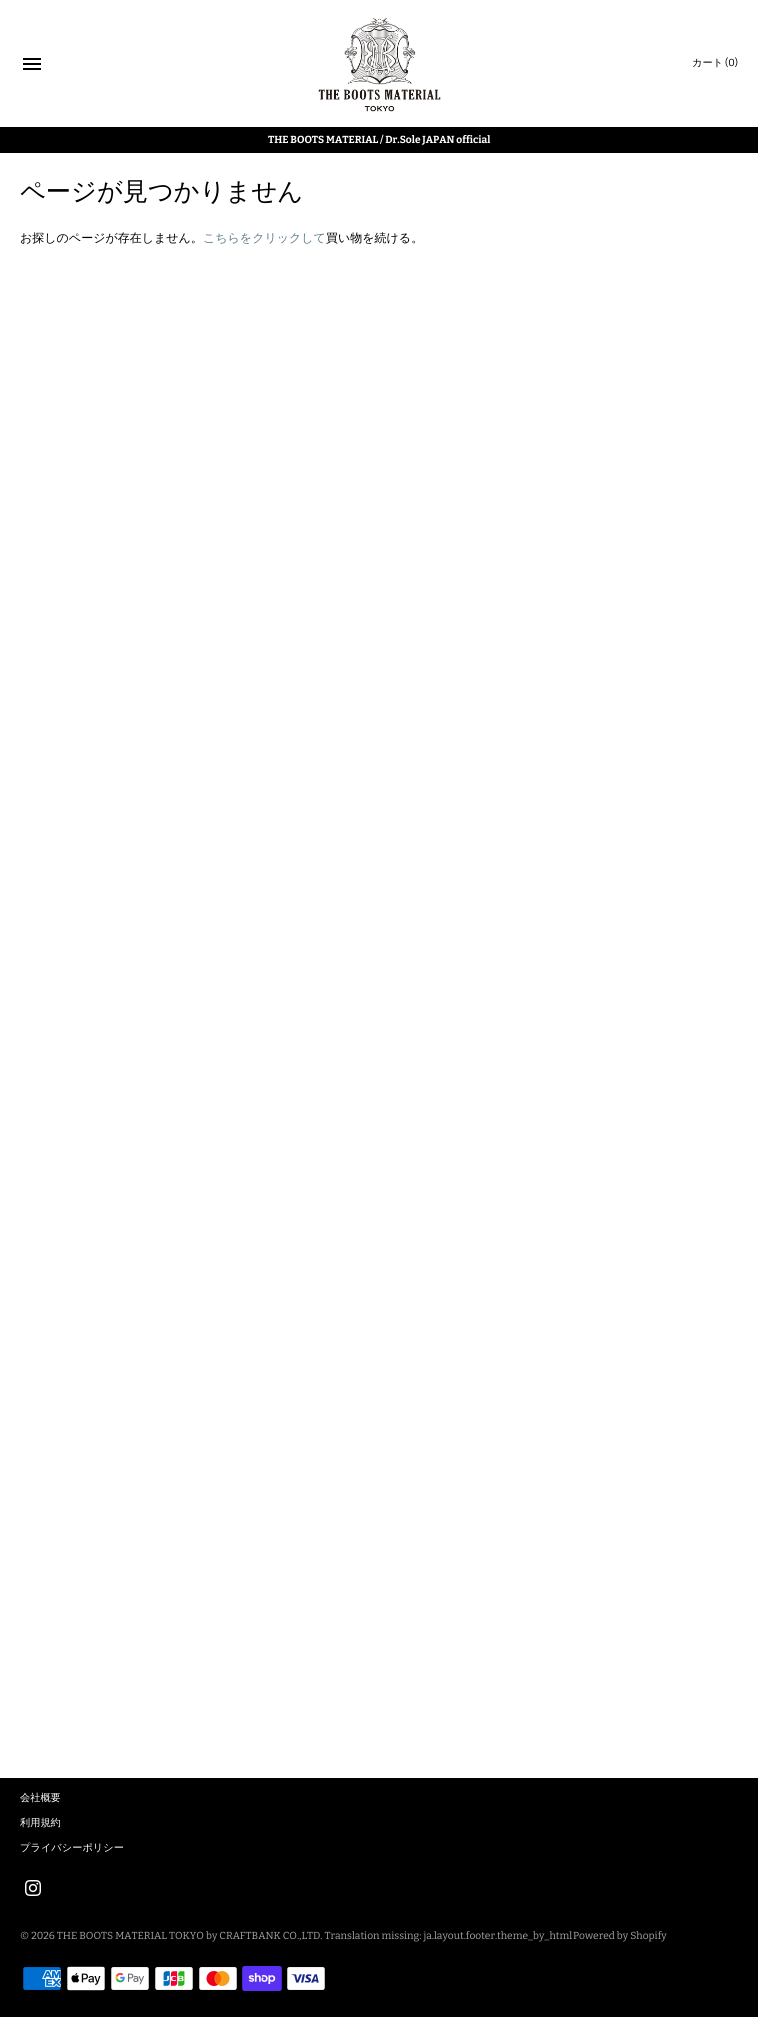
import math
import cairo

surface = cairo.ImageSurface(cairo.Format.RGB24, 758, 2017)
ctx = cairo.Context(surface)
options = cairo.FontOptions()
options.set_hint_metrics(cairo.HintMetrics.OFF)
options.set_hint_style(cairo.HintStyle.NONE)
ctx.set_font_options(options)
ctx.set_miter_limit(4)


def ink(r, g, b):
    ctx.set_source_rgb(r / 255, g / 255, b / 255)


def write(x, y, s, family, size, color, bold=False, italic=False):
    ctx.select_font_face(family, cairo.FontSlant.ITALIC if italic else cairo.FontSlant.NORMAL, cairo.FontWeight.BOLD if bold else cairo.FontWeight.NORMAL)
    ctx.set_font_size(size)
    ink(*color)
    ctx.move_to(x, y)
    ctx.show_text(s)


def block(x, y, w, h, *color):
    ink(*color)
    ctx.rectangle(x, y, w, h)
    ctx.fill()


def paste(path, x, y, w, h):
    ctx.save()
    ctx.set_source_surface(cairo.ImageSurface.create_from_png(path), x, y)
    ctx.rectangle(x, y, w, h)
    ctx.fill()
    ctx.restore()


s1 = dict(family="WenQuanYi Zen Hei Medium", size=10.2, color=(0, 0, 0))
s2 = dict(family="Bitter", size=10.2, color=(0, 0, 0))
s3 = dict(family="Bitter", size=10.2, color=(255, 255, 255), bold=True)
s4 = dict(family="WenQuanYi Zen Hei Medium", size=25.25, color=(0, 0, 0))
s5 = dict(family="WenQuanYi Zen Hei Medium", size=12, color=(0, 0, 0))
s6 = dict(family="WenQuanYi Zen Hei Medium", size=12, color=(96, 125, 139))
s7 = dict(family="WenQuanYi Zen Hei Medium", size=10.2, color=(255, 255, 255))
s8 = dict(family="Bitter", size=10.2, color=(165, 165, 165))

ink(255, 255, 255)
ctx.paint()
paste("pic1.png", 23, 58, 18, 12)
paste("pic2.png", 318, 18, 123, 94)
write(692, 66, "カート", **s1)
write(725, 66, "(0)", **s2)
block(0, 127, 758, 26, 0, 0, 0)
write(268, 143, "THE BOOTS MATERIAL / Dr.Sole JAPAN official", **s3)
write(20, 200, "ページが見つかりません", **s4)
write(20, 242, "お探しのページが存在しません。", **s5)
write(203, 242, "こちらをクリックして", **s6)
write(326, 242, "買い物を続ける。", **s5)
block(0, 1778, 758, 239, 0, 0, 0)
write(20, 1801, "会社概要", **s7)
write(20, 1826, "利用規約", **s7)
write(20, 1851, "プライバシーポリシー", **s7)
paste("pic3.png", 25, 1880, 16, 16)
write(20, 1939, "© 2026 THE BOOTS MATERIAL TOKYO by CRAFTBANK CO.,LTD. Translation missing: ja.layout.footer.theme_by_html", **s8)
write(573, 1939, "Powered by Shopify", **s8)
paste("pic4.png", 23, 1967, 38, 23)
paste("pic5.png", 67, 1966, 38, 25)
paste("pic6.png", 111, 1967, 38, 23)
paste("pic7.png", 155, 1967, 38, 23)
paste("pic8.png", 199, 1967, 38, 23)
paste("pic9.png", 242, 1966, 40, 25)
paste("pic10.png", 287, 1967, 38, 23)
surface.write_to_png("screenshot.png")
